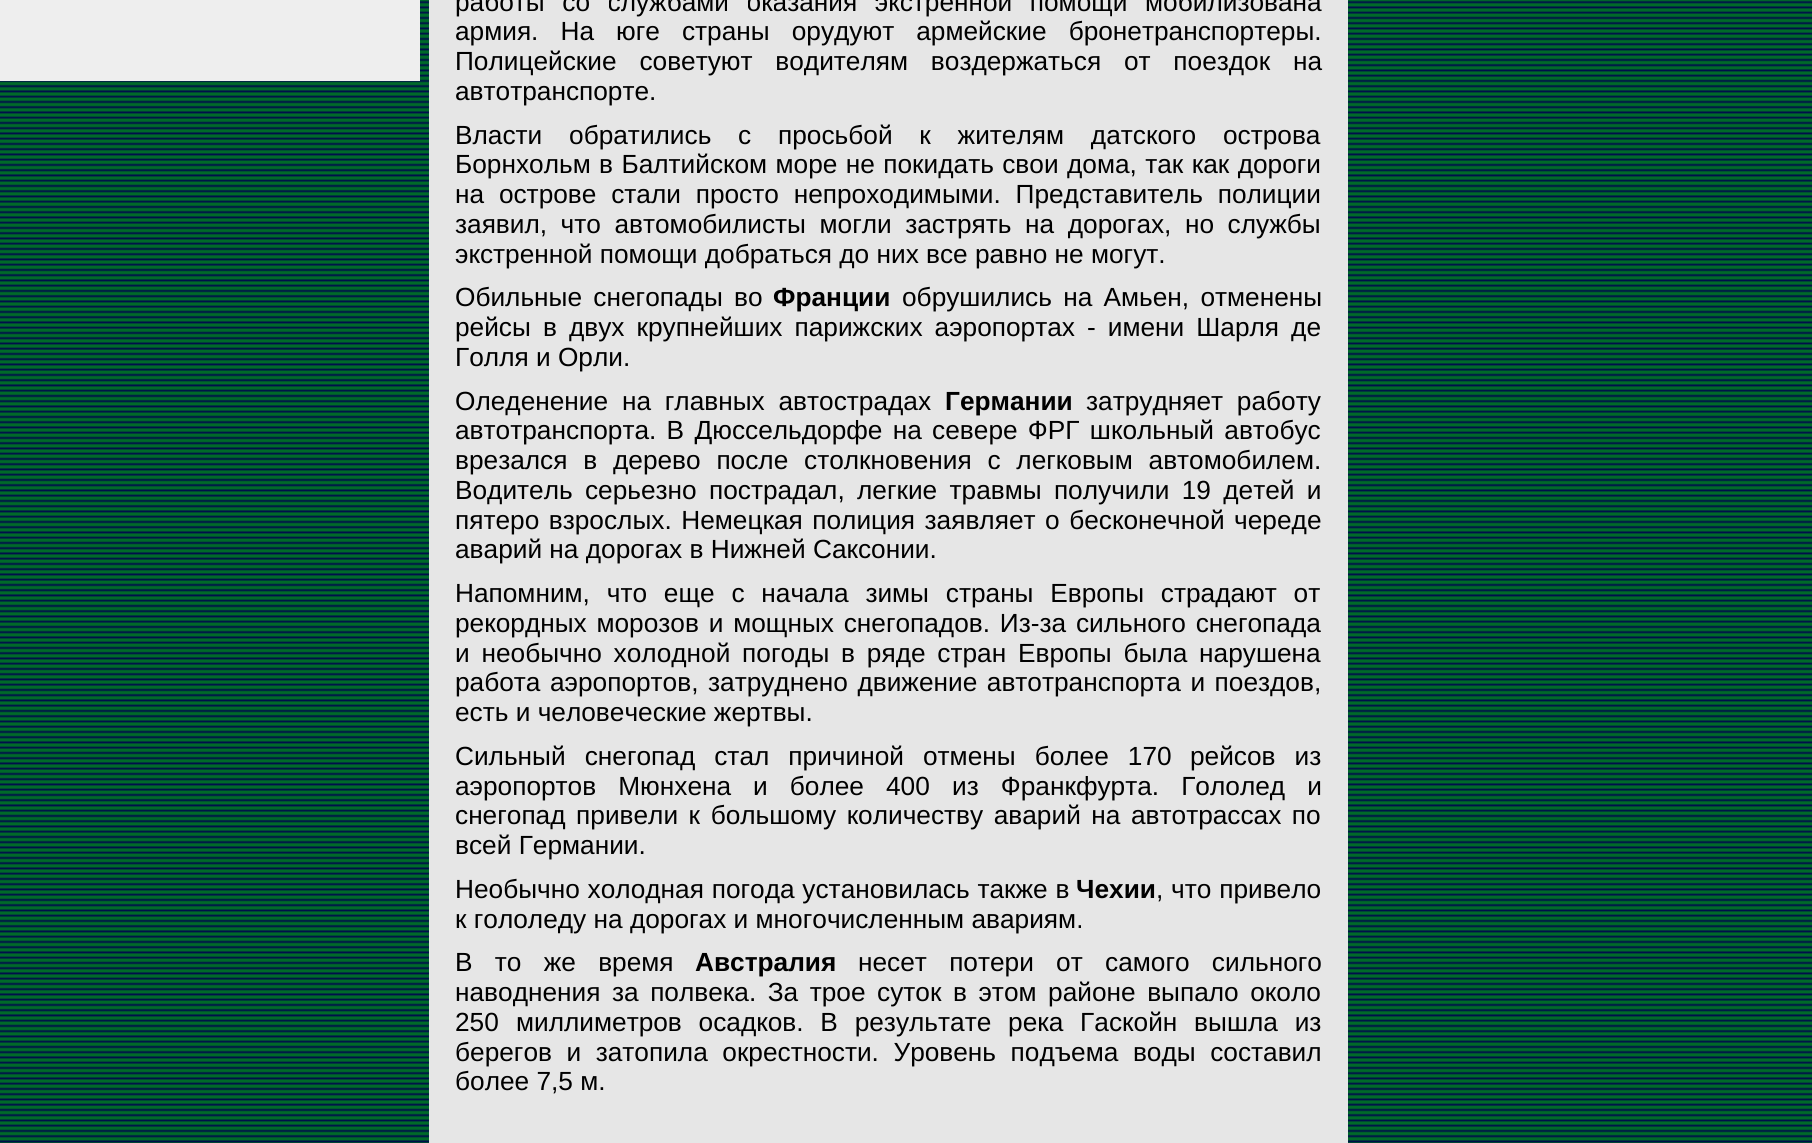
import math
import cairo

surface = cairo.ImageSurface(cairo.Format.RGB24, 1812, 1143)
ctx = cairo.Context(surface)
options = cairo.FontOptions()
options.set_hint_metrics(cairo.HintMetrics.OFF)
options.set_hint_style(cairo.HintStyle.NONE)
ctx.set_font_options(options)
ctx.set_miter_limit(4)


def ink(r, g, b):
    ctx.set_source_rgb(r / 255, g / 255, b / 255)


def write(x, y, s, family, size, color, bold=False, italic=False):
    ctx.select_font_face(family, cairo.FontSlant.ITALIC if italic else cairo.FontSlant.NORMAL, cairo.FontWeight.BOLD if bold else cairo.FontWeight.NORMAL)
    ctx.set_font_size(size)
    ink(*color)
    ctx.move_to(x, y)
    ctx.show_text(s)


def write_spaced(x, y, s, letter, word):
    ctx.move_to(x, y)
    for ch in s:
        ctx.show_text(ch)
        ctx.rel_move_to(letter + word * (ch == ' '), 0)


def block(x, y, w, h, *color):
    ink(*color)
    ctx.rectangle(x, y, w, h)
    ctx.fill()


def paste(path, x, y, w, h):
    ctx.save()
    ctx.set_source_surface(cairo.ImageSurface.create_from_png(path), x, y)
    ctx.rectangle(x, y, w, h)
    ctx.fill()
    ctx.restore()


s1 = dict(family="Liberation Sans", size=26.25, color=(0, 0, 0))
s2 = dict(family="Liberation Sans", size=26.25, color=(0, 0, 0), bold=True)

ink(255, 255, 255)
ctx.paint()
paste("pic1.png", 0, 0, 1812, 1143)
block(0, 0, 420, 81, 238, 238, 238)
block(429, 0, 919, 1143, 230, 230, 230)
ctx.select_font_face("Liberation Sans")
ctx.set_font_size(26.25)
ink(0, 0, 0)
write_spaced(455, 11, "работы со службами оказания экстренной помощи мобилизована", 0, 10.25)
write_spaced(455, 40, "армия. На юге страны орудуют армейские бронетранспортеры.", 0, 14.75)
write_spaced(455, 70, "Полицейские советуют водителям воздержаться от поездок на", 0, 15.5)
write(455, 100, "автотранспорте.", **s1)
write_spaced(455, 144, "Власти обратились с просьбой к жителям датского острова", 0, 19.5)
write_spaced(455, 173, "Борнхольм в Балтийском море не покидать свои дома, так как дороги", 0, 1.1)
write_spaced(455, 203, "на острове стали просто непроходимыми. Представитель полиции", 0, 7.5)
write_spaced(455, 233, "заявил, что автомобилисты могли застрять на дорогах, но службы", 0, 6.25)
write(455, 263, "экстренной помощи добраться до них все равно не могут.", **s1)
write_spaced(455, 306, "Обильные снегопады во", 0, 4)
write(773, 306, "Франции", **s2)
ctx.select_font_face("Liberation Sans")
write_spaced(902, 306, "обрушились на Амьен, отменены", 0, 4)
write_spaced(455, 336, "рейсы в двух крупнейших парижских аэропортах - имени Шарля де", 0, 4.75)
write(455, 366, "Голля и Орли.", **s1)
write_spaced(455, 410, "Оледенение на главных автострадах", 0, 6.5)
write(945, 410, "Германии", **s2)
ctx.select_font_face("Liberation Sans")
write_spaced(1086, 410, "затрудняет работу", 0, 6.5)
write_spaced(455, 439, "автотранспорта. В Дюссельдорфе на севере ФРГ школьный автобус", 0, 3)
write_spaced(455, 469, "врезался в дерево после столкновения с легковым автомобилем.", 0, 8.5)
write_spaced(455, 499, "Водитель серьезно пострадал, легкие травмы получили 19 детей и", 0, 5)
write_spaced(455, 529, "пятеро взрослых. Немецкая полиция заявляет о бесконечной череде", 0, 2.25)
write(455, 558, "аварий на дорогах в Нижней Саксонии.", **s1)
write_spaced(455, 602, "Напомним, что еще с начала зимы страны Европы страдают от", 0, 9.5)
write_spaced(455, 632, "рекордных морозов и мощных снегопадов. Из-за сильного снегопада", 0, 2.5)
write_spaced(455, 662, "и необычно холодной погоды в ряде стран Европы была нарушена", 0, 4.5)
write_spaced(455, 691, "работа аэропортов, затруднено движение автотранспорта и поездов,", 0, 2.25)
write(455, 721, "есть и человеческие жертвы.", **s1)
write_spaced(455, 765, "Сильный снегопад стал причиной отмены более 170", 0, 11.75)
write_spaced(1190, 765, "рейсов из", 0, 11.75)
write_spaced(455, 795, "аэропортов Мюнхена и более 400", 0, 14.75)
write_spaced(952, 795, "из Франкфурта. Гололед и", 0, 14.75)
write_spaced(455, 824, "снегопад привели к большому количеству аварий на автотрассах по", 0, 3.25)
write(455, 854, "всей Германии.", **s1)
write_spaced(455, 898, "Необычно холодная погода установилась также в", 0, 0.5)
write(1076, 898, "Чехии", **s2)
ctx.select_font_face("Liberation Sans")
write_spaced(1156, 898, ", что привело", 0, 0.5)
write(455, 928, "к гололеду на дорогах и многочисленным авариям.", **s1)
write_spaced(455, 971, "В то же время", 0, 15)
write(695, 971, "Австралия", **s2)
ctx.select_font_face("Liberation Sans")
write_spaced(858, 971, "несет потери от самого сильного", 0, 15)
write_spaced(455, 1001, "наводнения за полвека. За трое суток в этом районе выпало около", 0, 4.25)
write(455, 1031, "250", **s1)
write_spaced(516, 1031, "миллиметров осадков. В результате река Гаскойн вышла из", 0, 9.5)
write_spaced(455, 1061, "берегов и затопила окрестности. Уровень подъема воды составил", 0, 7.25)
write(455, 1090, "более 7,5 м.", **s1)
surface.write_to_png("screenshot.png")
